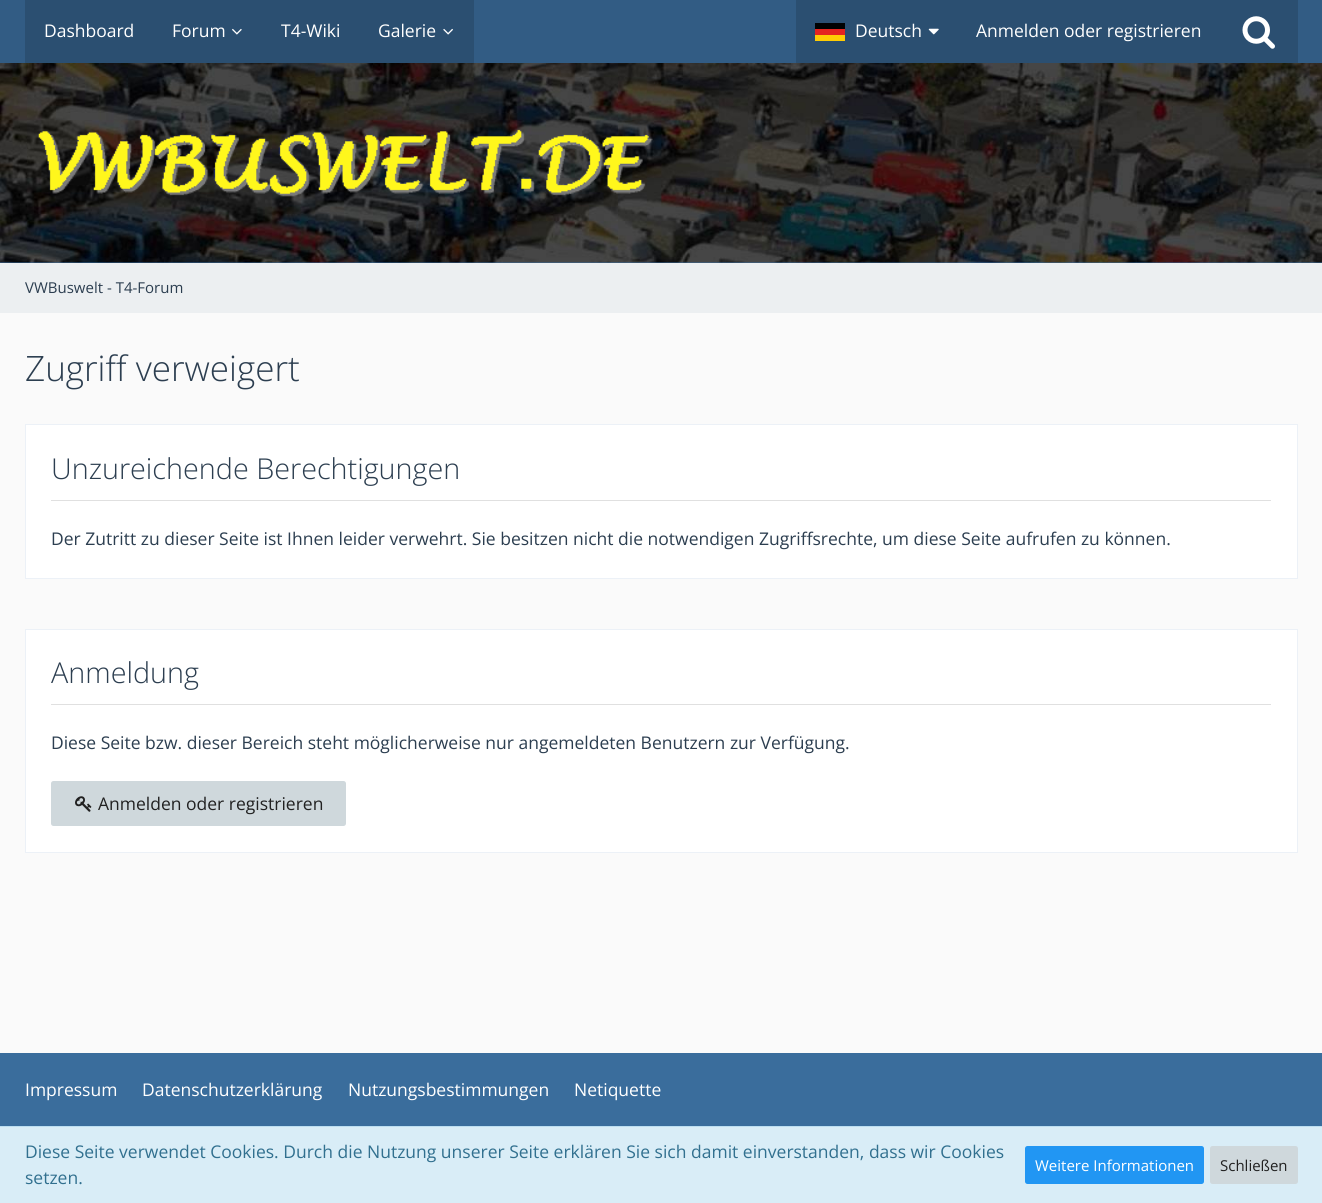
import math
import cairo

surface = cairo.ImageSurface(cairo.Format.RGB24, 1322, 1203)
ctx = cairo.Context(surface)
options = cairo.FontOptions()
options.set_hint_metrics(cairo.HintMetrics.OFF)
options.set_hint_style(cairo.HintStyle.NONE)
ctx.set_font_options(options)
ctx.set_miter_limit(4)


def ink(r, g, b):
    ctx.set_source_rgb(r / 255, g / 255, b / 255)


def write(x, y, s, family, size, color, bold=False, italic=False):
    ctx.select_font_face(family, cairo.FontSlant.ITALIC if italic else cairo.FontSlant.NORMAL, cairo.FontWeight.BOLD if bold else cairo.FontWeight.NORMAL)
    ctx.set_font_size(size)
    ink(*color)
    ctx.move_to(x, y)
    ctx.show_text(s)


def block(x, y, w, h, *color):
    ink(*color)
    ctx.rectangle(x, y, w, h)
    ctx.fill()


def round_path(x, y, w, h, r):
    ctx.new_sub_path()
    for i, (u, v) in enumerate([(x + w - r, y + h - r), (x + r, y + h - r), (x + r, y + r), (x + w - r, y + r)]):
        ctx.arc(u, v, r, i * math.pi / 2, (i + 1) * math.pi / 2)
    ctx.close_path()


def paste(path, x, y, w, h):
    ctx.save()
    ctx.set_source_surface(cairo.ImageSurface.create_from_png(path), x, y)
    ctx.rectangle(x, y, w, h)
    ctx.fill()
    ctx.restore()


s1 = dict(family="Open Sans", size=17.5, color=(255, 255, 255))
s2 = dict(family="Open Sans", size=15, color=(44, 62, 80))
s3 = dict(family="Open Sans Light", size=35, color=(44, 62, 80))
s4 = dict(family="Open Sans Light", size=28.75, color=(44, 62, 80))
s5 = dict(family="Open Sans", size=17.5, color=(44, 62, 80))
s6 = dict(family="Open Sans", size=17.5, color=(33, 33, 33))
s7 = dict(family="Open Sans", size=17.5, color=(49, 112, 143))
s8 = dict(family="Open Sans", size=15, color=(255, 255, 255))
s9 = dict(family="Open Sans", size=15, color=(33, 33, 33))

ink(250, 250, 250)
ctx.paint()
block(0, 262, 1322, 1, 58, 109, 156)
paste("pic1.png", 0, 63, 1322, 200)
block(0, 0, 1322, 63, 50, 92, 132)
block(25, 0, 449, 63, 43, 79, 113)
write(44, 37, "Dashboard", **s1)
write(172, 37, "Forum", **s1)
paste("pic2.png", 232, 28, 10, 7)
write(281, 37, "T4-Wiki", **s1)
write(378, 37, "Galerie", **s1)
paste("pic3.png", 443, 28, 10, 7)
block(796, 0, 502, 63, 43, 79, 113)
block(815, 23, 30, 6, 1, 2, 2)
block(815, 35, 30, 6, 255, 204, 4)
block(815, 29, 30, 6, 229, 36, 32)
write(855, 37, "Deutsch", **s1)
paste("pic4.png", 928, 28, 11, 7)
write(976, 37, "Anmelden oder registrieren", **s1)
paste("pic5.png", 1242, 16, 33, 33)
paste("pic6.png", 37, 129, 616, 68)
block(0, 263, 1322, 50, 236, 239, 241)
write(25, 293, "VWBuswelt - T4-Forum", **s2)
write(25, 381, "Zugriff verweigert", **s3)
ink(255, 255, 255)
ctx.rectangle(25.5, 424.5, 1272, 154)
ctx.fill_preserve()
ink(236, 241, 247)
ctx.set_line_width(1)
ctx.stroke()
block(51, 500, 1220, 1, 224, 224, 224)
write(51, 479, "Unzureichende Berechtigungen", **s4)
write(51, 545, "Der Zutritt zu dieser Seite ist Ihnen leider verwehrt. Sie besitzen nicht die notwendigen Zugriffsrechte, um diese Seite aufrufen zu können.", **s5)
ink(255, 255, 255)
ctx.rectangle(25.5, 629.5, 1272, 223)
ctx.fill_preserve()
ink(236, 241, 247)
ctx.stroke()
block(51, 704, 1220, 1, 224, 224, 224)
write(51, 683, "Anmeldung", **s4)
write(51, 749, "Diese Seite bzw. dieser Bereich steht möglicherweise nur angemeldeten Benutzern zur Verfügung.", **s5)
ink(207, 216, 220)
round_path(51, 781, 295, 45, 2.5)
ctx.fill()
paste("pic7.png", 75, 796, 17, 16)
write(98, 810, "Anmelden oder registrieren", **s6)
block(0, 1053, 1322, 73, 58, 109, 156)
write(25, 1096, "Impressum", **s1)
write(142, 1096, "Datenschutzerklärung", **s1)
write(348, 1096, "Nutzungsbestimmungen", **s1)
write(574, 1096, "Netiquette", **s1)
block(0, 1127, 1322, 76, 217, 237, 247)
block(0, 1126, 1322, 1, 188, 223, 241)
write(25, 1158, "Diese Seite verwendet Cookies. Durch die Nutzung unserer Seite erklären Sie sich damit einverstanden, dass wir Cookies", **s7)
write(25, 1184, "setzen.", **s7)
ink(33, 150, 243)
round_path(1025, 1146, 179, 38, 2.5)
ctx.fill()
write(1035, 1171, "Weitere Informationen", **s8)
ink(207, 216, 220)
round_path(1210, 1146, 88, 38, 2.5)
ctx.fill()
write(1220, 1171, "Schließen", **s9)
surface.write_to_png("screenshot.png")
